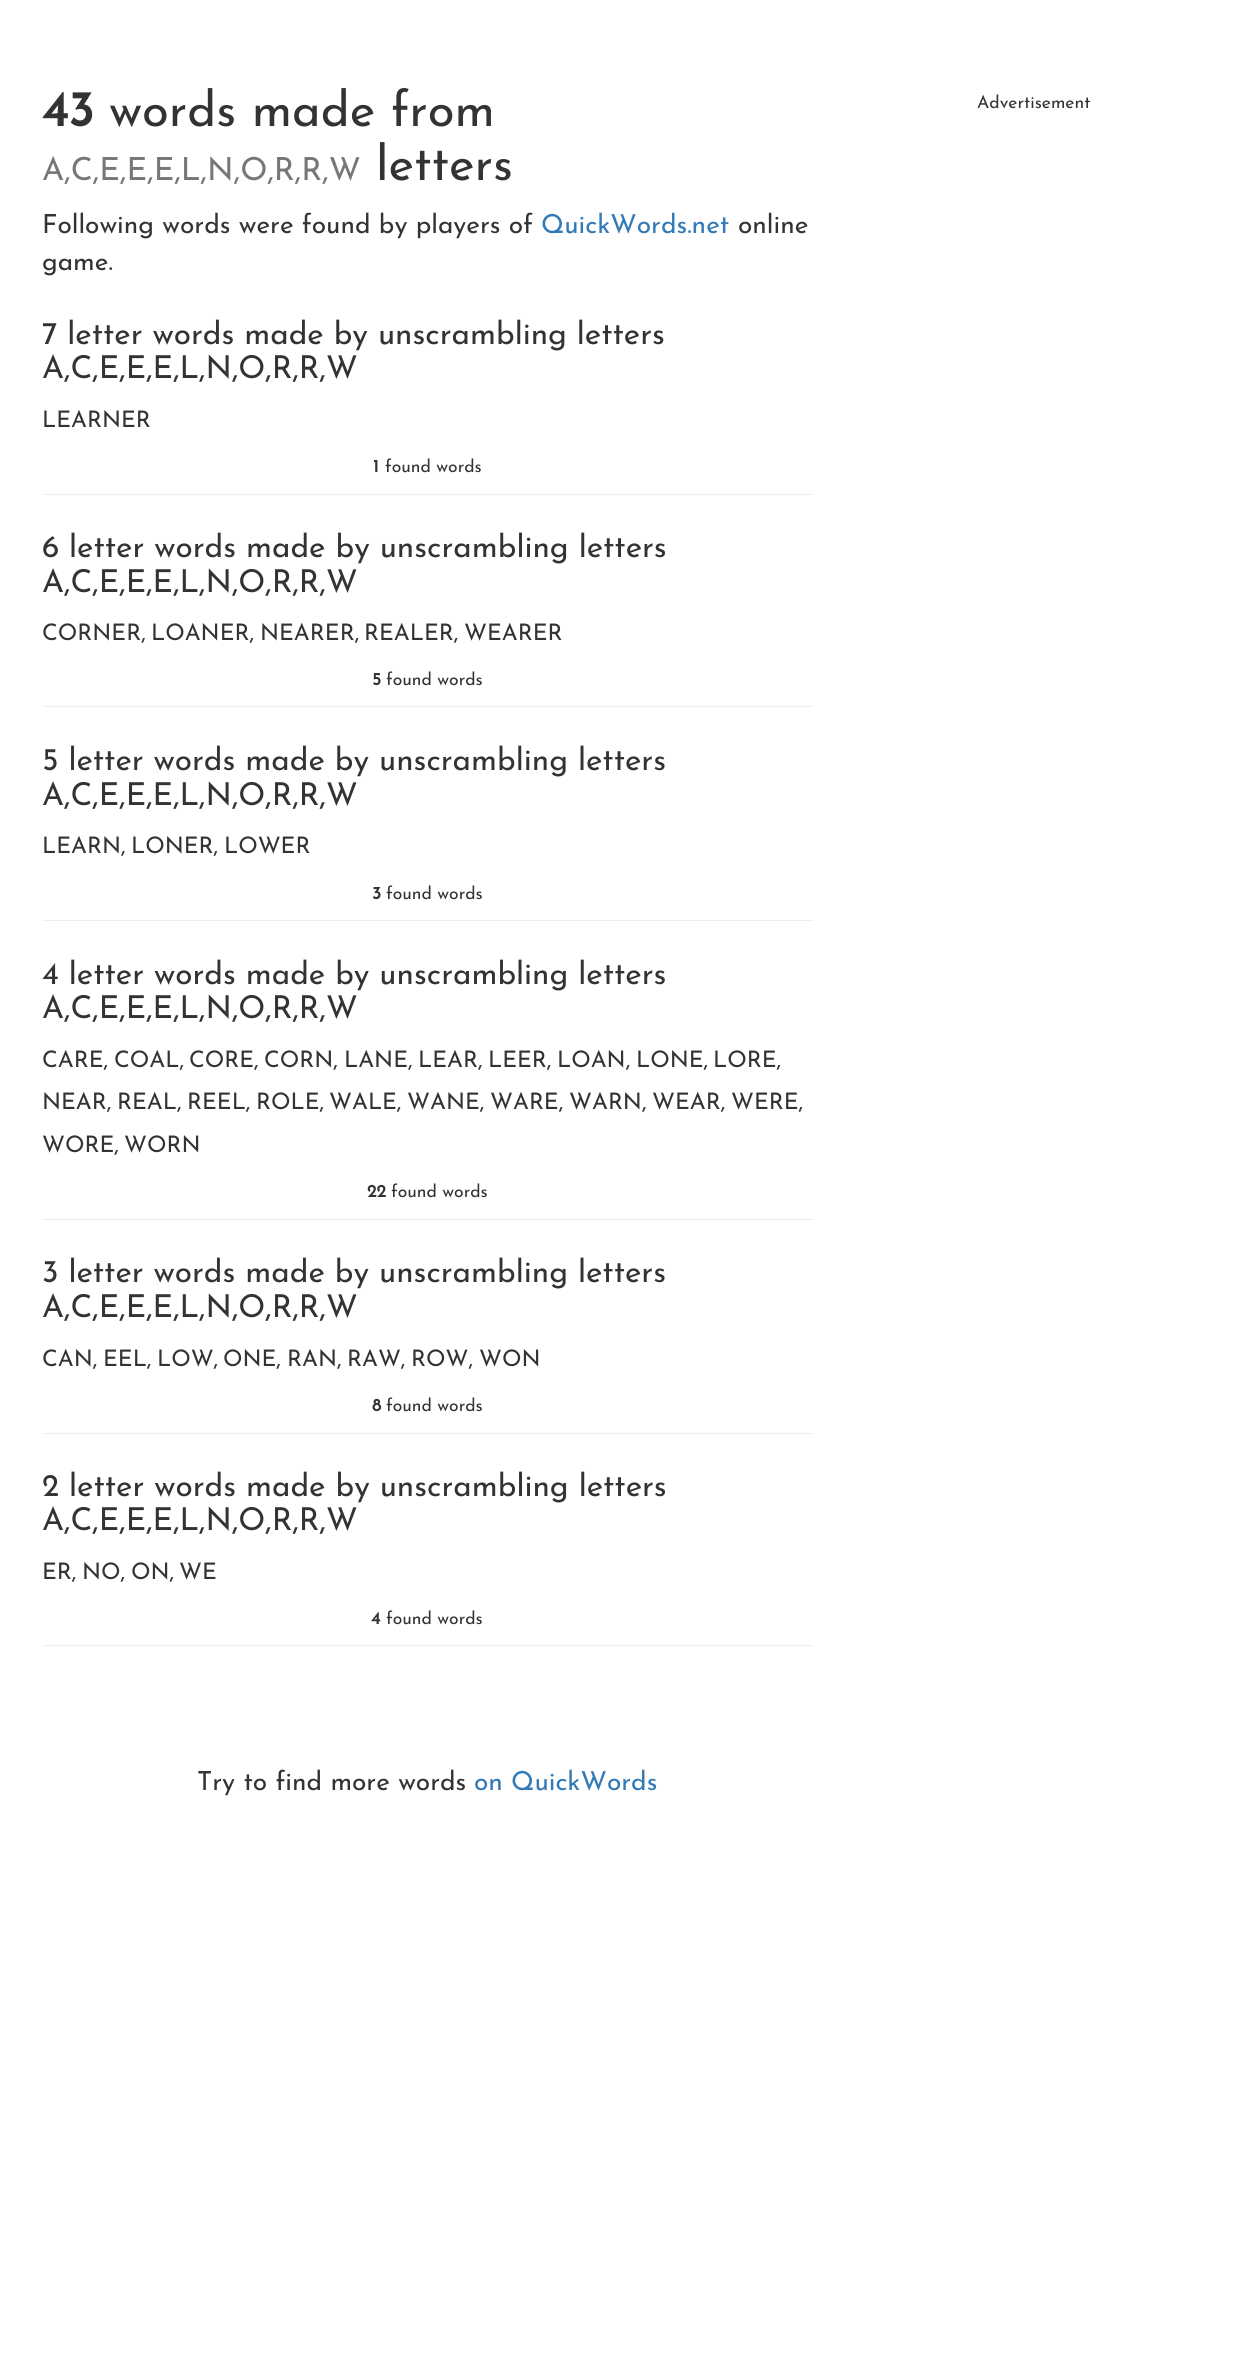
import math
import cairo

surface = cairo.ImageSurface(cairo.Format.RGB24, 1258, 2361)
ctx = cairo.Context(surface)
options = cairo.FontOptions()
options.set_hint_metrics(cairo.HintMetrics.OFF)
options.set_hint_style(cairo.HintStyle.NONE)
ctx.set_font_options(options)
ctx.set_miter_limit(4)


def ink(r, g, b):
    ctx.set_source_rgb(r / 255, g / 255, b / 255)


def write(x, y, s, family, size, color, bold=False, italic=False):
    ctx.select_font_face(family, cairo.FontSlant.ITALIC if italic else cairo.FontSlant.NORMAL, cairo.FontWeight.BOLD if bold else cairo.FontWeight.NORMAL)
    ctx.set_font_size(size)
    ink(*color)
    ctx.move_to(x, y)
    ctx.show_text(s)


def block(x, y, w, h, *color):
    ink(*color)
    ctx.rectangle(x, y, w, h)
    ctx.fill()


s1 = dict(family="Josefin Sans", size=49, color=(51, 51, 51), bold=True)
s2 = dict(family="Josefin Sans Thin", size=49, color=(51, 51, 51))
s3 = dict(family="Josefin Sans Thin", size=31.8, color=(119, 119, 119))
s4 = dict(family="Josefin Sans Thin", size=26.25, color=(51, 51, 51))
s5 = dict(family="Josefin Sans Thin", size=26.25, color=(51, 122, 183))
s6 = dict(family="Josefin Sans Thin", size=31.5, color=(51, 51, 51))
s7 = dict(family="Josefin Sans Thin", size=22.75, color=(51, 51, 51))
s8 = dict(family="Josefin Sans", size=17.5, color=(51, 51, 51), bold=True)
s9 = dict(family="Josefin Sans Thin", size=17.5, color=(51, 51, 51))

ink(255, 255, 255)
ctx.paint()
write(42, 126, "43", **s1)
write(109, 126, "words made from", **s2)
write(42, 180, "A,C,E,E,E,L,N,O,R,R,W", **s3)
write(376, 180, "letters", **s2)
write(42, 233, "Following words were found by players of", **s4)
write(541, 233, "QuickWords.net", **s5)
write(738, 233, "online", **s4)
write(42, 270, "game.", **s4)
write(42, 344, "7 letter words made by unscrambling letters", **s6)
write(42, 378, "A,C,E,E,E,L,N,O,R,R,W", **s6)
write(42, 427, "LEARNER", **s7)
block(43, 494, 770, 1, 238, 238, 238)
write(373, 472, "1", **s8)
write(385, 472, "found words", **s9)
write(42, 557, "6 letter words made by unscrambling letters", **s6)
write(42, 592, "A,C,E,E,E,L,N,O,R,R,W", **s6)
write(42, 640, "CORNER,", **s7)
write(151, 640, "LOANER,", **s7)
write(260, 640, "NEARER,", **s7)
write(364, 640, "REALER,", **s7)
write(464, 640, "WEARER", **s7)
block(43, 706, 770, 1, 238, 238, 238)
write(372, 685, "5", **s8)
write(386, 685, "found words", **s9)
write(42, 770, "5 letter words made by unscrambling letters", **s6)
write(42, 805, "A,C,E,E,E,L,N,O,R,R,W", **s6)
write(42, 853, "LEARN,", **s7)
write(131, 853, "LONER,", **s7)
write(224, 853, "LOWER", **s7)
block(43, 920, 770, 1, 238, 238, 238)
write(372, 899, "3", **s8)
write(386, 899, "found words", **s9)
write(42, 984, "4 letter words made by unscrambling letters", **s6)
write(42, 1018, "A,C,E,E,E,L,N,O,R,R,W", **s6)
write(42, 1067, "CARE,", **s7)
write(114, 1067, "COAL,", **s7)
write(189, 1067, "CORE,", **s7)
write(264, 1067, "CORN,", **s7)
write(344, 1067, "LANE,", **s7)
write(418, 1067, "LEAR,", **s7)
write(488, 1067, "LEER,", **s7)
write(557, 1067, "LOAN,", **s7)
write(636, 1067, "LONE,", **s7)
write(713, 1067, "LORE,", **s7)
write(42, 1109, "NEAR,", **s7)
write(117, 1109, "REAL,", **s7)
write(187, 1109, "REEL,", **s7)
write(256, 1109, "ROLE,", **s7)
write(329, 1109, "WALE,", **s7)
write(407, 1109, "WANE,", **s7)
write(490, 1109, "WARE,", **s7)
write(569, 1109, "WARN,", **s7)
write(652, 1109, "WEAR,", **s7)
write(731, 1109, "WERE,", **s7)
write(42, 1152, "WORE,", **s7)
write(124, 1152, "WORN", **s7)
block(43, 1219, 770, 1, 238, 238, 238)
write(367, 1197, "22", **s8)
write(391, 1197, "found words", **s9)
write(42, 1282, "3 letter words made by unscrambling letters", **s6)
write(42, 1317, "A,C,E,E,E,L,N,O,R,R,W", **s6)
write(42, 1366, "CAN,", **s7)
write(103, 1366, "EEL,", **s7)
write(157, 1366, "LOW,", **s7)
write(223, 1366, "ONE,", **s7)
write(287, 1366, "RAN,", **s7)
write(347, 1366, "RAW,", **s7)
write(411, 1366, "ROW,", **s7)
write(479, 1366, "WON", **s7)
block(43, 1433, 770, 1, 238, 238, 238)
write(372, 1411, "8", **s8)
write(386, 1411, "found words", **s9)
write(42, 1496, "2 letter words made by unscrambling letters", **s6)
write(42, 1530, "A,C,E,E,E,L,N,O,R,R,W", **s6)
write(42, 1579, "ER,", **s7)
write(82, 1579, "NO,", **s7)
write(131, 1579, "ON,", **s7)
write(179, 1579, "WE", **s7)
block(43, 1645, 770, 1, 238, 238, 238)
write(371, 1624, "4", **s8)
write(386, 1624, "found words", **s9)
write(197, 1790, "Try to find more words", **s4)
write(474, 1790, "on QuickWords", **s5)
write(977, 108, "Advertisement", **s9)
surface.write_to_png("screenshot.png")
